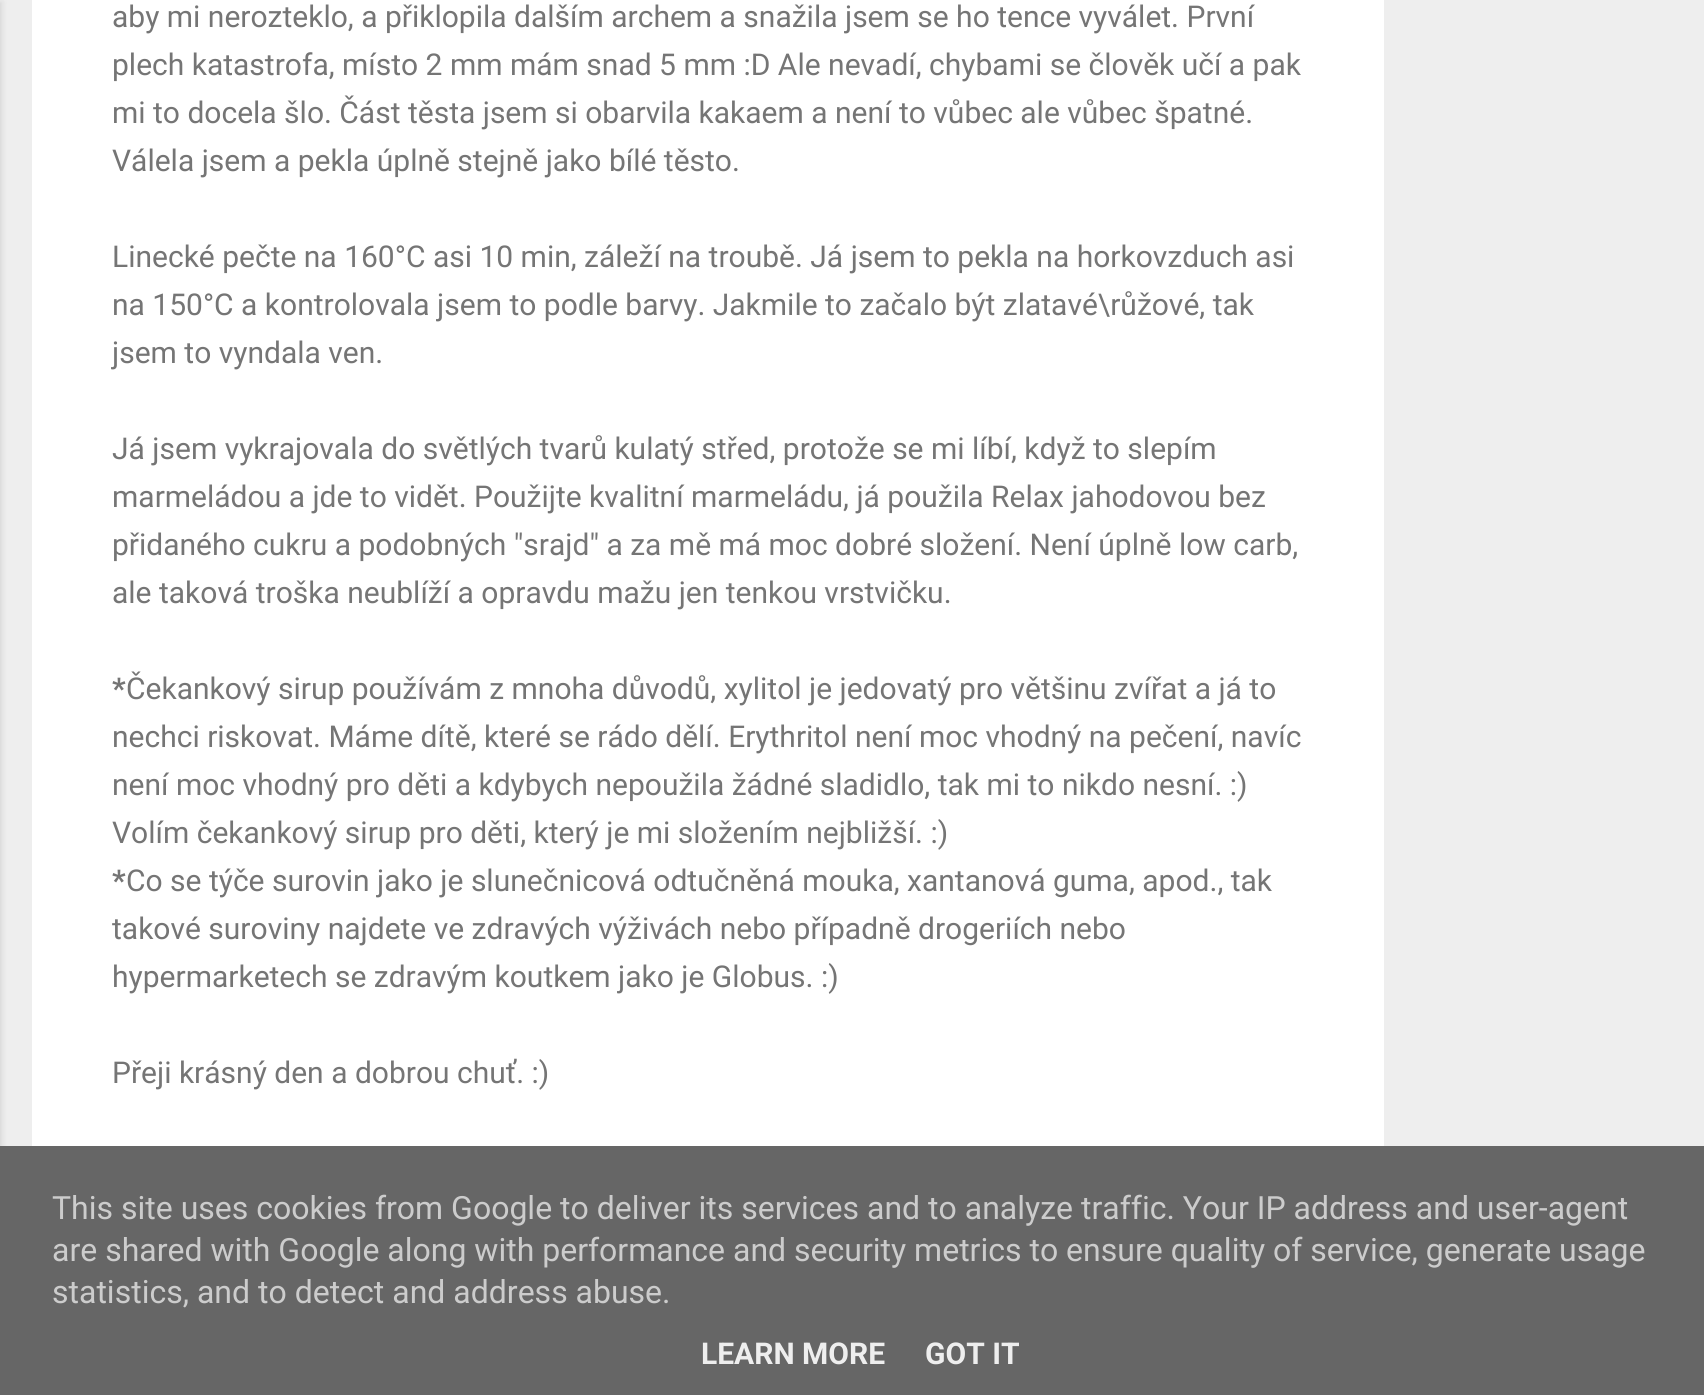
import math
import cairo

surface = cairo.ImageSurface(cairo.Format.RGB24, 1704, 1395)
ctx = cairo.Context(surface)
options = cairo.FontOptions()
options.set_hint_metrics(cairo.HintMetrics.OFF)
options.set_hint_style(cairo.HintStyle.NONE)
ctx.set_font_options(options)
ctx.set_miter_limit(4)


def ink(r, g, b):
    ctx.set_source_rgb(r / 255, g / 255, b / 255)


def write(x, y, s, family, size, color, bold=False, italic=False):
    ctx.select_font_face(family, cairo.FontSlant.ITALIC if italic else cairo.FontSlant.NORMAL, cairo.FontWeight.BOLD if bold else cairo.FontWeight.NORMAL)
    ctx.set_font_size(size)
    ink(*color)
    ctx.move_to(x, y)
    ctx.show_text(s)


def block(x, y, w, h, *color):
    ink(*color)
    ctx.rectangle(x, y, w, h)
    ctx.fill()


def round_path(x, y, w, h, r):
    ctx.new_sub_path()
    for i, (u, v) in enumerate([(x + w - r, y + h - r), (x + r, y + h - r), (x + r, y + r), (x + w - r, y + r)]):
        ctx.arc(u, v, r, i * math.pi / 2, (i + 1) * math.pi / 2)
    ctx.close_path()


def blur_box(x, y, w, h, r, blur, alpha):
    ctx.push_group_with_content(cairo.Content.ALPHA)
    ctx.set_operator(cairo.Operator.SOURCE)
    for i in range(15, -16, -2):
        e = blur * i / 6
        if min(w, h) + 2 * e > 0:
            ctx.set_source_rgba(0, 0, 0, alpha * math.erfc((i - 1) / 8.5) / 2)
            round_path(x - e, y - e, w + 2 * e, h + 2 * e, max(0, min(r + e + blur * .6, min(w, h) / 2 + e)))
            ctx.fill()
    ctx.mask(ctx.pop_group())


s1 = dict(family="Roboto", size=30, color=(117, 117, 117))
s2 = dict(family="Roboto", size=30, color=(117, 117, 117), bold=True)
s3 = dict(family="Roboto", size=32, color=(204, 204, 204))
s4 = dict(family="Roboto", size=30, color=(238, 238, 238), bold=True)

ink(238, 238, 238)
ctx.paint()
ink(0, 0, 0)
blur_box(-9, 2, 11, 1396, 0, 3, 0.1)
block(32, 0, 1352, 1146, 255, 255, 255)
write(112, 27, "aby mi nerozteklo, a přiklopila dalším archem a snažila jsem se ho tence vyválet. První", **s1)
write(112, 75, "plech katastrofa, místo 2 mm mám snad 5 mm :D Ale nevadí, chybami se člověk učí a pak", **s1)
write(112, 123, "mi to docela šlo. Část těsta jsem si obarvila kakaem a není to vůbec ale vůbec špatné.", **s1)
write(112, 171, "Válela jsem a pekla úplně stejně jako bílé těsto.", **s1)
write(112, 267, "Linecké pečte na 160°C asi 10 min, záleží na troubě. Já jsem to pekla na horkovzduch asi", **s1)
write(112, 315, "na 150°C a kontrolovala jsem to podle barvy. Jakmile to začalo být zlatavé\\růžové, tak", **s1)
write(112, 363, "jsem to vyndala ven.", **s1)
write(112, 459, "Já jsem vykrajovala do světlých tvarů kulatý střed, protože se mi líbí, když to slepím", **s1)
write(112, 507, "marmeládou a jde to vidět. Použijte kvalitní marmeládu, já použila Relax jahodovou bez", **s1)
write(112, 555, "přidaného cukru a podobných \"srajd\" a za mě má moc dobré složení. Není úplně low carb,", **s1)
write(112, 603, "ale taková troška neublíží a opravdu mažu jen tenkou vrstvičku.", **s1)
write(112, 699, "*", **s2)
write(126, 699, "Čekankový sirup používám z mnoha důvodů, xylitol je jedovatý pro většinu zvířat a já to", **s1)
write(112, 747, "nechci riskovat. Máme dítě, které se rádo dělí. Erythritol není moc vhodný na pečení, navíc", **s1)
write(112, 795, "není moc vhodný pro děti a kdybych nepoužila žádné sladidlo, tak mi to nikdo nesní. :)", **s1)
write(112, 843, "Volím čekankový sirup pro děti, který je mi složením nejbližší. :)", **s1)
write(112, 891, "*", **s2)
write(126, 891, "Co se týče surovin jako je slunečnicová odtučněná mouka, xantanová guma, apod., tak", **s1)
write(112, 939, "takové suroviny najdete ve zdravých výživách nebo případně drogeriích nebo", **s1)
write(112, 987, "hypermarketech se zdravým koutkem jako je Globus. :)", **s1)
write(112, 1083, "Přeji krásný den a dobrou chuť. :)", **s1)
block(0, 1146, 1704, 249, 102, 102, 102)
write(52, 1219, "This site uses cookies from Google to deliver its services and to analyze traffic. Your IP address and user-agent", **s3)
write(52, 1261, "are shared with Google along with performance and security metrics to ensure quality of service, generate usage", **s3)
write(52, 1303, "statistics, and to detect and address abuse.", **s3)
write(701, 1364, "LEARN MORE", **s4)
write(925, 1364, "GOT IT", **s4)
surface.write_to_png("screenshot.png")
